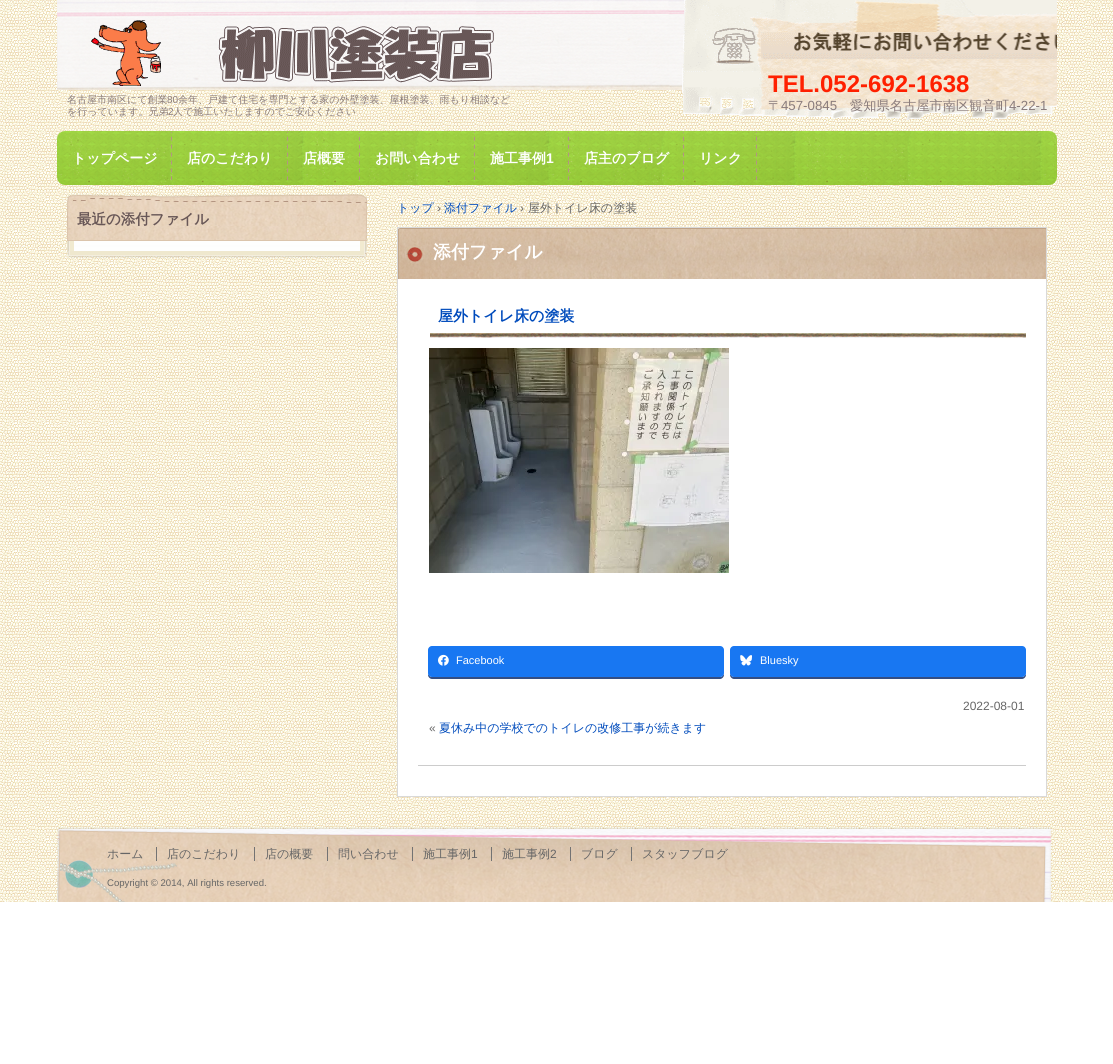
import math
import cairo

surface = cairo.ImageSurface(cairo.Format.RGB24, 1113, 1064)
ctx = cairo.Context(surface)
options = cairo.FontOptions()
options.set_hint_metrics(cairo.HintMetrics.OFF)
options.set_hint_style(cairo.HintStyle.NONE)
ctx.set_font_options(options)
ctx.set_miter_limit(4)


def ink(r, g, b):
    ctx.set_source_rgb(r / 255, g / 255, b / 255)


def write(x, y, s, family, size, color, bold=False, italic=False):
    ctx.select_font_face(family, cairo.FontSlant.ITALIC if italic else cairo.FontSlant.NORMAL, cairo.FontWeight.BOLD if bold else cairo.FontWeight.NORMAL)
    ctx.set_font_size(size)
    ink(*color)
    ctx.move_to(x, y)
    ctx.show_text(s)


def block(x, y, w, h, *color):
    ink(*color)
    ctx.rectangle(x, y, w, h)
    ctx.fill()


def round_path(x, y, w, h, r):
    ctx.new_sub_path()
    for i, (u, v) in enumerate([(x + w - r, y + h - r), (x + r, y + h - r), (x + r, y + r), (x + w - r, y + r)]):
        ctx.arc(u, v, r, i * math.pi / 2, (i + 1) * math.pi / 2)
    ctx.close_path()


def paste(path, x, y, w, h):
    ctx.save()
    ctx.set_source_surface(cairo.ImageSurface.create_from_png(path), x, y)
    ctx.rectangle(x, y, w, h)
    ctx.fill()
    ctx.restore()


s1 = dict(family="WenQuanYi Zen Hei Medium", size=10, color=(137, 123, 123))
s2 = dict(family="Liberation Sans", size=10, color=(137, 123, 123))
s3 = dict(family="Liberation Sans", size=24, color=(255, 32, 0), bold=True)
s4 = dict(family="WenQuanYi Zen Hei Medium", size=13.25, color=(137, 123, 123))
s5 = dict(family="Liberation Sans", size=13.25, color=(137, 123, 123))
s6 = dict(family="WenQuanYi Zen Hei", size=14, color=(255, 255, 255), bold=True)
s7 = dict(family="Liberation Sans", size=14, color=(255, 255, 255), bold=True)
s8 = dict(family="WenQuanYi Zen Hei Medium", size=12, color=(0, 75, 188))
s9 = dict(family="Liberation Sans", size=12, color=(102, 102, 102))
s10 = dict(family="WenQuanYi Zen Hei Medium", size=12, color=(102, 102, 102))
s11 = dict(family="WenQuanYi Zen Hei", size=14.5, color=(104, 87, 87), bold=True)
s12 = dict(family="WenQuanYi Zen Hei", size=18, color=(255, 255, 255), bold=True)
s13 = dict(family="WenQuanYi Zen Hei", size=15, color=(0, 75, 188), bold=True)
s14 = dict(family="Liberation Sans", size=11, color=(255, 255, 255))
s15 = dict(family="Liberation Sans", size=9.6, color=(102, 102, 102))

ink(255, 255, 255)
ctx.paint()
paste("pic1.png", 0, 0, 1113, 902)
paste("pic2.png", 57, 0, 628, 90)
paste("pic3.png", 91, 20, 403, 66)
write(67, 103, "名古屋市南区にて創業", **s1)
write(167, 103, "80", **s2)
write(178, 103, "余年、戸建て住宅を専門とする家の外壁塗装、屋根塗装、雨もり相談など", **s1)
write(67, 115, "を行っています。兄弟", **s1)
write(168, 115, "2", **s2)
write(173, 115, "人で施工いたしますのでご安心ください", **s1)
paste("pic4.png", 682, 0, 375, 120)
write(768, 92, "TEL.052-692-1638", **s3)
write(768, 110, "〒", **s4)
write(781, 110, "457-0845", **s5)
write(850, 110, "愛知県名古屋市南区観音町", **s4)
write(1009, 110, "4-22-1", **s5)
paste("pic5.png", 57, 131, 1000, 54)
paste("pic6.png", 171, 132, 1, 50)
write(72, 163, "トップページ", **s6)
paste("pic7.png", 287, 132, 1, 50)
write(187, 163, "店のこだわり", **s6)
paste("pic8.png", 359, 132, 1, 50)
write(303, 163, "店概要", **s6)
paste("pic9.png", 474, 132, 1, 50)
write(375, 163, "お問い合わせ", **s6)
paste("pic10.png", 568, 132, 1, 50)
write(490, 163, "施工事例", **s6)
write(546, 163, "1", **s7)
paste("pic11.png", 683, 132, 1, 50)
write(584, 163, "店主のブログ", **s6)
paste("pic12.png", 756, 132, 1, 50)
write(699, 163, "リンク", **s6)
write(397, 212, "トップ", **s8)
write(437, 212, "›", **s9)
write(444, 212, "添付ファイル", **s8)
write(520, 212, "›", **s9)
write(528, 212, "屋外トイレ床の塗装", **s10)
paste("pic13.png", 67, 251, 300, 7)
paste("pic14.png", 67, 194, 300, 46)
block(67, 240, 300, 1, 219, 196, 172)
write(77, 224, "最近の添付ファイル", **s11)
block(67, 241, 300, 10, 242, 234, 210)
paste("pic15.png", 67, 241, 300, 10)
block(398, 279, 648, 517, 255, 255, 255)
ctx.rectangle(397.5, 227.5, 649, 569)
ink(217, 217, 217)
ctx.set_line_width(1)
ctx.stroke()
paste("pic16.png", 398, 228, 648, 51)
write(433, 258, "添付ファイル", **s12)
block(418, 765, 608, 1, 204, 204, 204)
paste("pic17.png", 430, 333, 596, 5)
write(438, 321, "屋外トイレ床の塗装", **s13)
paste("pic18.png", 429, 348, 300, 225)
ink(52, 78, 132)
ctx.new_path()
ctx.move_to(428, 673)
ctx.line_to(428, 675)
ctx.curve_to(428, 677, 430, 679, 432, 679)
ctx.line_to(720, 679)
ctx.curve_to(722, 679, 724, 677, 724, 675)
ctx.line_to(724, 673)
ctx.curve_to(724, 675, 722, 677, 720, 677)
ctx.line_to(432, 677)
ctx.curve_to(430, 677, 428, 675, 428, 673)
ctx.close_path()
ctx.fill()
ink(24, 119, 242)
round_path(428, 646, 296, 31, 4)
ctx.fill()
paste("pic19.png", 438, 654, 11, 12)
write(456, 664, "Facebook", **s14)
ink(52, 78, 132)
ctx.new_path()
ctx.move_to(730, 673)
ctx.line_to(730, 675)
ctx.curve_to(730, 677, 732, 679, 734, 679)
ctx.line_to(1022, 679)
ctx.curve_to(1024, 679, 1026, 677, 1026, 675)
ctx.line_to(1026, 673)
ctx.curve_to(1026, 675, 1024, 677, 1022, 677)
ctx.line_to(734, 677)
ctx.curve_to(732, 677, 730, 675, 730, 673)
ctx.close_path()
ctx.fill()
ink(24, 119, 242)
round_path(730, 646, 296, 31, 4)
ctx.fill()
paste("pic20.png", 740, 655, 12, 11)
write(760, 664, "Bluesky", **s14)
write(963, 710, "2022-08-01", **s9)
write(429, 732, "«", **s9)
write(439, 732, "夏休み中の学校でのトイレの改修工事が続きます", **s8)
paste("pic21.png", 57, 827, 995, 75)
write(107, 858, "ホーム", **s10)
write(167, 858, "店のこだわり", **s10)
block(156, 847, 1, 14, 115, 115, 115)
write(265, 858, "店の概要", **s10)
block(254, 847, 1, 14, 115, 115, 115)
write(338, 858, "問い合わせ", **s10)
block(327, 847, 1, 14, 115, 115, 115)
write(423, 858, "施工事例", **s10)
block(412, 847, 1, 14, 115, 115, 115)
write(471, 858, "1", **s9)
write(502, 858, "施工事例", **s10)
block(491, 847, 1, 14, 115, 115, 115)
write(550, 858, "2", **s9)
write(581, 858, "ブログ", **s10)
block(570, 847, 1, 14, 115, 115, 115)
write(642, 858, "スタッフブログ", **s10)
block(631, 847, 1, 14, 115, 115, 115)
write(107, 886, "Copyright © 2014, All rights reserved.", **s15)
surface.write_to_png("screenshot.png")
